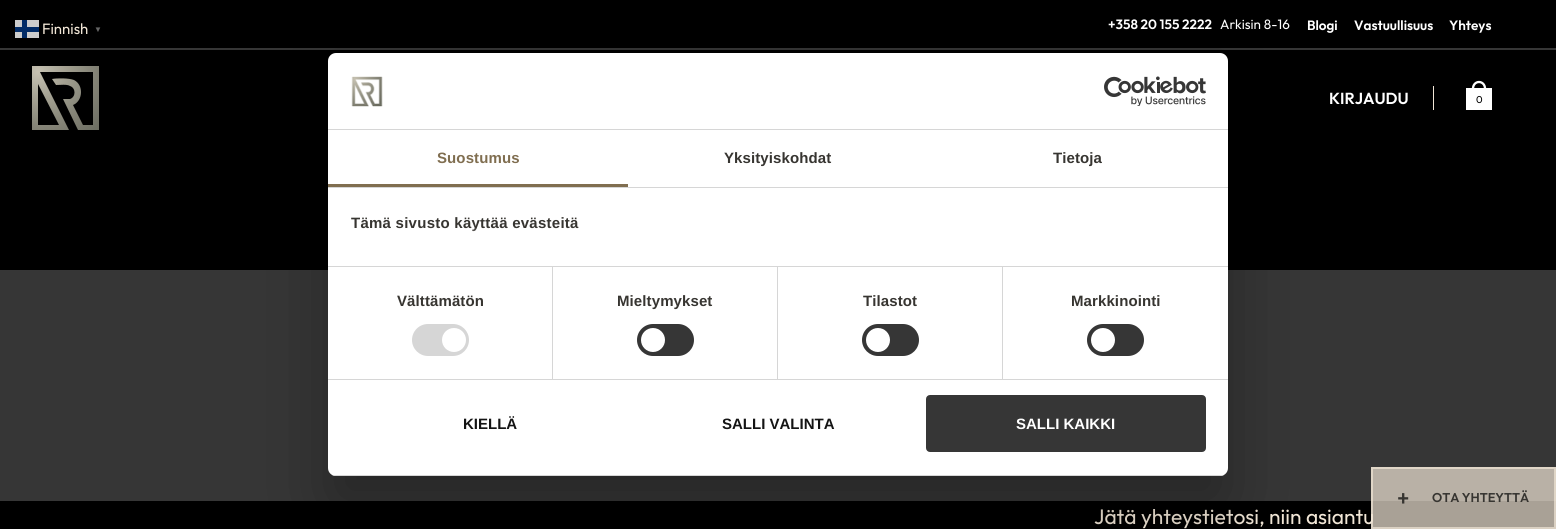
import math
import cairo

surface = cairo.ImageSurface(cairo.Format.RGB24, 1556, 529)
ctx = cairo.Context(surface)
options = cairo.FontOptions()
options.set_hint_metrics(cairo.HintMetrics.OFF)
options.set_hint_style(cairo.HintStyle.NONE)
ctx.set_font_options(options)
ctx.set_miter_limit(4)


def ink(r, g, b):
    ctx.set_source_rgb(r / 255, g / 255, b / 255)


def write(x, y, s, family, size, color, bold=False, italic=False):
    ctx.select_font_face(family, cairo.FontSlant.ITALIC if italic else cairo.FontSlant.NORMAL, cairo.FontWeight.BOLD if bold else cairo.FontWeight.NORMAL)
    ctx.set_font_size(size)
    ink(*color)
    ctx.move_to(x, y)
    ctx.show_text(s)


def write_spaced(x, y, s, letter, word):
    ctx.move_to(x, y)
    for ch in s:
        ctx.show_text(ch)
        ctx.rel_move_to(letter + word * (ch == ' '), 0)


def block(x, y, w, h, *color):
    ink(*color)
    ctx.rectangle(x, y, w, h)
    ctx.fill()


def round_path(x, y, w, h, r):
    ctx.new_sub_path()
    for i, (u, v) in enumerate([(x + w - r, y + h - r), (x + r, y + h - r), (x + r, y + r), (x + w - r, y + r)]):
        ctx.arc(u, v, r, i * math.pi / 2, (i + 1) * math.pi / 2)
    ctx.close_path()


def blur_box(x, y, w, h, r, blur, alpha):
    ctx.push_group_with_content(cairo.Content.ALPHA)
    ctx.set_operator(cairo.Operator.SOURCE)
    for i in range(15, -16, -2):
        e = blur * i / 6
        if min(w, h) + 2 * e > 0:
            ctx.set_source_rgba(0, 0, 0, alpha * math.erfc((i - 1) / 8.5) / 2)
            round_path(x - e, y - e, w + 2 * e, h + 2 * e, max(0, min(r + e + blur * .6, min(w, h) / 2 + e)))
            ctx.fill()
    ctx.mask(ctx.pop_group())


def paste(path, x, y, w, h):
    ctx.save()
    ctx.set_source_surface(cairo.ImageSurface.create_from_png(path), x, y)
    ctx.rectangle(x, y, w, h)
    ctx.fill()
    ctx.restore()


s1 = dict(family="Outfit", size=15, color=(241, 230, 214))
s2 = dict(family="Liberation Serif", size=8, color=(102, 102, 102), bold=True)
s3 = dict(family="Outfit SemiBold", size=13.5, color=(255, 255, 255))
s4 = dict(family="Outfit", size=13.5, color=(255, 255, 255))
s5 = dict(family="Outfit SemiBold", size=16, color=(255, 255, 255))
s6 = dict(family="Outfit", size=10, color=(0, 0, 0))
s7 = dict(family="Outfit", size=21, color=(241, 230, 214))
s8 = dict(family="Outfit SemiBold", size=20, color=(55, 53, 49))
s9 = dict(family="Outfit SemiBold", size=12.75, color=(55, 53, 49))
s10 = dict(family="Liberation Sans", size=15, color=(20, 20, 20), bold=True)
s11 = dict(family="Liberation Sans", size=15, color=(255, 255, 255), bold=True)

ink(54, 54, 54)
ctx.paint()
block(0, 0, 1556, 270, 0, 0, 0)
write(42, 34, "Finnish", **s1)
block(15, 20, 24, 18, 204, 204, 204)
block(15, 27, 24, 5, 0, 42, 102)
block(22, 20, 5, 18, 0, 42, 102)
write(94, 32, "▼", **s2)
block(0, 48, 1556, 2, 54, 54, 54)
write(1108, 29, "+358 20 155 2222", **s3)
write(1220, 29, "Arkisin 8-16", **s4)
write(1307, 30, "Blogi", **s3)
write(1354, 30, "Vastuullisuus", **s3)
write(1449, 30, "Yhteys", **s3)
gradient = cairo.RadialGradient(38, 72, 0, 38, 72, 85)
gradient.add_color_stop_rgba(0, 0.78, 0.761, 0.698, 1)
gradient.add_color_stop_rgba(0.1, 0.733, 0.718, 0.659, 1)
gradient.add_color_stop_rgba(0.2, 0.69, 0.678, 0.62, 1)
gradient.add_color_stop_rgba(0.3, 0.651, 0.639, 0.58, 1)
gradient.add_color_stop_rgba(0.4, 0.612, 0.604, 0.545, 1)
gradient.add_color_stop_rgba(0.5, 0.573, 0.569, 0.514, 1)
gradient.add_color_stop_rgba(0.6, 0.537, 0.533, 0.482, 1)
gradient.add_color_stop_rgba(0.7, 0.506, 0.502, 0.451, 1)
gradient.add_color_stop_rgba(0.8, 0.475, 0.475, 0.427, 1)
gradient.add_color_stop_rgba(0.9, 0.447, 0.451, 0.404, 1)
gradient.add_color_stop_rgba(1, 0.42, 0.427, 0.38, 1)
ctx.set_source(gradient)
ctx.set_fill_rule(cairo.FillRule.EVEN_ODD)
ctx.new_path()
ctx.move_to(32, 66)
ctx.line_to(99, 66)
ctx.line_to(99, 130)
ctx.line_to(78, 130)
ctx.line_to(63, 99)
ctx.line_to(70, 99)
ctx.curve_to(76, 97, 76, 88, 70, 86)
ctx.curve_to(67, 84, 60, 85, 56, 85)
ctx.line_to(52, 79)
ctx.curve_to(57, 78, 69, 78, 74, 80)
ctx.curve_to(84, 85, 83, 101, 73, 105)
ctx.line_to(83, 125)
ctx.line_to(93, 125)
ctx.line_to(93, 72)
ctx.line_to(40, 72)
ctx.line_to(69, 130)
ctx.line_to(32, 130)
ctx.close_path()
ctx.move_to(38, 125)
ctx.line_to(59, 125)
ctx.line_to(38, 84)
ctx.close_path()
ctx.fill()
block(1433, 86, 1, 24, 241, 230, 214)
write(1329, 104, "KIRJAUDU", **s5)
ctx.new_path()
ctx.move_to(1473, 94)
ctx.line_to(1473, 88.5)
ctx.curve_to(1473, 85, 1475.5, 82, 1479, 82)
ctx.curve_to(1482.5, 82, 1485, 85, 1485, 88.5)
ctx.line_to(1485, 94)
ctx.set_line_width(2.3)
ctx.stroke()
ctx.rectangle(1467.25, 89.25, 23.5, 19.5)
ctx.set_line_width(2.5)
ctx.stroke()
block(1468, 90, 22, 18, 255, 255, 255)
write(1476, 103, "0", **s6)
block(0, 501, 1556, 28, 0, 0, 0)
write(1094, 524, "Jätä yhteystietosi, niin asiantu", **s7)
ctx.set_source_rgba(0.945, 0.902, 0.839, 0.7)
ctx.rectangle(1371, 467, 185, 62)
ctx.fill()
ctx.rectangle(1372, 468, 183, 60)
ctx.set_line_width(2)
ctx.stroke()
ctx.save()
ctx.translate(1404, 507)
ctx.rotate(-45 * math.pi / 180)
write(0, 0, "×", **s8)
ctx.restore()
write(1432, 502, "OTA YHTEYTTÄ", **s9)
ink(0, 0, 0)
blur_box(328, 85, 900, 423, 8, 34, 0.3)
ink(255, 255, 255)
round_path(328, 53, 900, 423, 8)
ctx.fill()
block(328, 129, 900, 1, 214, 214, 214)
paste("pic1.png", 351, 76, 32, 31)
paste("pic2.png", 1104, 76, 102, 30)
block(328, 187, 900, 1, 214, 214, 214)
block(328, 184, 300, 3, 128, 110, 80)
ctx.select_font_face("Liberation Sans", cairo.FontSlant.NORMAL, cairo.FontWeight.BOLD)
ctx.set_font_size(15)
write_spaced(437, 163, "Suostumus", 0.1, 0)
ink(55, 53, 49)
write_spaced(724, 163, "Yksityiskohdat", 0.1, 0)
write_spaced(1053, 163, "Tietoja", 0.1, 0)
block(328, 266, 900, 1, 214, 214, 214)
ink(55, 53, 49)
write_spaced(351, 228, "Tämä sivusto käyttää evästeitä", 0.25, 0)
gradient = cairo.LinearGradient(768, 266, 768, 227)
gradient.add_color_stop_rgba(0, 1, 1, 1, 1)
gradient.add_color_stop_rgba(0.5, 1, 1, 1, 0.8)
gradient.add_color_stop_rgba(1, 1, 1, 1, 0)
ctx.set_source(gradient)
ctx.rectangle(471, 228, 5, 4)
ctx.fill()
block(328, 379, 900, 1, 214, 214, 214)
block(552, 267, 1, 112, 214, 214, 214)
ink(55, 53, 49)
write_spaced(397, 306, "Välttämätön", 0.1, 0)
ink(214, 214, 214)
round_path(412, 324, 57, 32, 16)
ctx.fill()
ink(255, 255, 255)
ctx.arc(454, 340, 12, 0, 2 * math.pi)
ctx.fill()
block(777, 267, 1, 112, 214, 214, 214)
ink(55, 53, 49)
write_spaced(617, 306, "Mieltymykset", 0.1, 0)
ink(54, 54, 54)
round_path(637, 324, 57, 32, 16)
ctx.fill()
ink(255, 255, 255)
ctx.arc(653, 340, 12, 0, 2 * math.pi)
ctx.fill()
block(1002, 267, 1, 112, 214, 214, 214)
ink(55, 53, 49)
write_spaced(863, 306, "Tilastot", 0.1, 0)
ink(54, 54, 54)
round_path(862, 324, 57, 32, 16)
ctx.fill()
ink(255, 255, 255)
ctx.arc(878, 340, 12, 0, 2 * math.pi)
ctx.fill()
ink(55, 53, 49)
write_spaced(1071, 306, "Markkinointi", 0.1, 0)
ink(54, 54, 54)
round_path(1087, 324, 57, 32, 16)
ctx.fill()
ink(255, 255, 255)
ctx.arc(1103, 340, 12, 0, 2 * math.pi)
ctx.fill()
ctx.save()
ctx.set_fill_rule(cairo.FillRule.WINDING)
round_path(328, 53, 900, 423, 8)
ctx.clip()
block(328, 475, 900, 1, 214, 214, 214)
ctx.restore()
write(463, 429, "KIELLÄ", **s10)
write(722, 429, "SALLI VALINTA", **s10)
ink(54, 54, 54)
round_path(927, 396, 278, 55, 3)
ctx.fill_preserve()
ctx.stroke()
write(1016, 429, "SALLI KAIKKI", **s11)
surface.write_to_png("screenshot.png")
